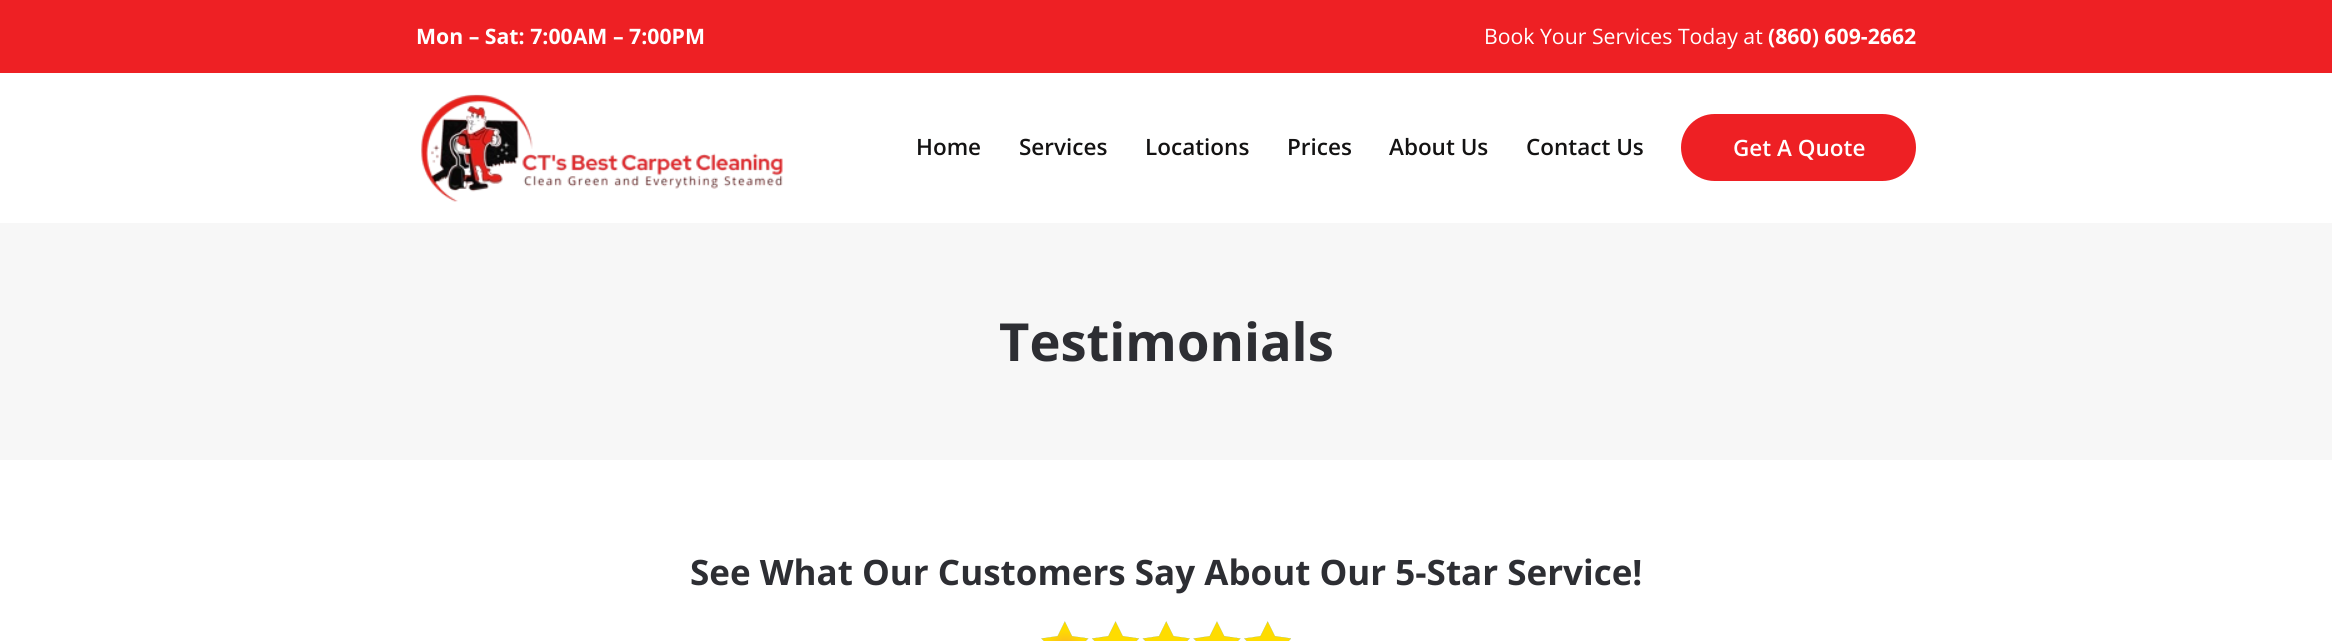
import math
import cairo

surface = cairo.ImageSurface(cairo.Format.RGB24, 2332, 641)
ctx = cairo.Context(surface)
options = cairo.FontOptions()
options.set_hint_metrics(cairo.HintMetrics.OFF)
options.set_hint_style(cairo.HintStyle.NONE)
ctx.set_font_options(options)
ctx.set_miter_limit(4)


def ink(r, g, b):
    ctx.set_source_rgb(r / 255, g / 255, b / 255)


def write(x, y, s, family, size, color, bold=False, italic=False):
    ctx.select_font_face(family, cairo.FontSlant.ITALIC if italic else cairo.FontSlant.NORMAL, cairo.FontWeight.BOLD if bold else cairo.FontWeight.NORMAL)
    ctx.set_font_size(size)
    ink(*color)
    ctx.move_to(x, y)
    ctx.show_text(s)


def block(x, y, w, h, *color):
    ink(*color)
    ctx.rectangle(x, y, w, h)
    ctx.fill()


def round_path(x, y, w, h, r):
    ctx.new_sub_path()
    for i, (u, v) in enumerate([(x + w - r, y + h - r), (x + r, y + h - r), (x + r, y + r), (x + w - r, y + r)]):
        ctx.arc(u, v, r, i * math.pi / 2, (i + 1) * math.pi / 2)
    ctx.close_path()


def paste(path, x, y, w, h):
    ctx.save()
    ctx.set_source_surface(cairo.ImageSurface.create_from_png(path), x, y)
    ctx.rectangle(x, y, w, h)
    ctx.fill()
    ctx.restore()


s1 = dict(family="Open Sans", size=21.25, color=(255, 255, 255), bold=True)
s2 = dict(family="Open Sans", size=21.25, color=(255, 255, 255))
s3 = dict(family="Open Sans SemiBold", size=22.5, color=(20, 19, 19))
s4 = dict(family="Open Sans SemiBold", size=22.5, color=(255, 255, 255))
s5 = dict(family="Open Sans", size=52.5, color=(45, 46, 51), bold=True)
s6 = dict(family="Open Sans", size=35, color=(45, 46, 51), bold=True)

ink(255, 255, 255)
ctx.paint()
block(0, 0, 2332, 73, 238, 32, 36)
write(416, 44, "Mon – Sat: 7:00AM – 7:00PM", **s1)
write(1484, 44, "Book Your Services Today at", **s2)
write(1768, 44, "(860) 609-2662", **s1)
paste("pic1.png", 421, 94, 362, 108)
write(916, 155, "Home", **s3)
write(1019, 155, "Services", **s3)
write(1145, 155, "Locations", **s3)
write(1287, 155, "Prices", **s3)
write(1389, 155, "About Us", **s3)
write(1526, 155, "Contact Us", **s3)
ink(238, 32, 36)
round_path(1681, 114, 235, 67, 33.5)
ctx.fill()
write(1733, 156, "Get A Quote", **s4)
block(0, 223, 2332, 237, 247, 247, 247)
write(999, 361, "Testimonials", **s5)
write(690, 585, "See What Our Customers Say About Our 5-Star Service!", **s6)
paste("pic2.png", 1041, 621, 250, 20)
surface.write_to_png("screenshot.png")
